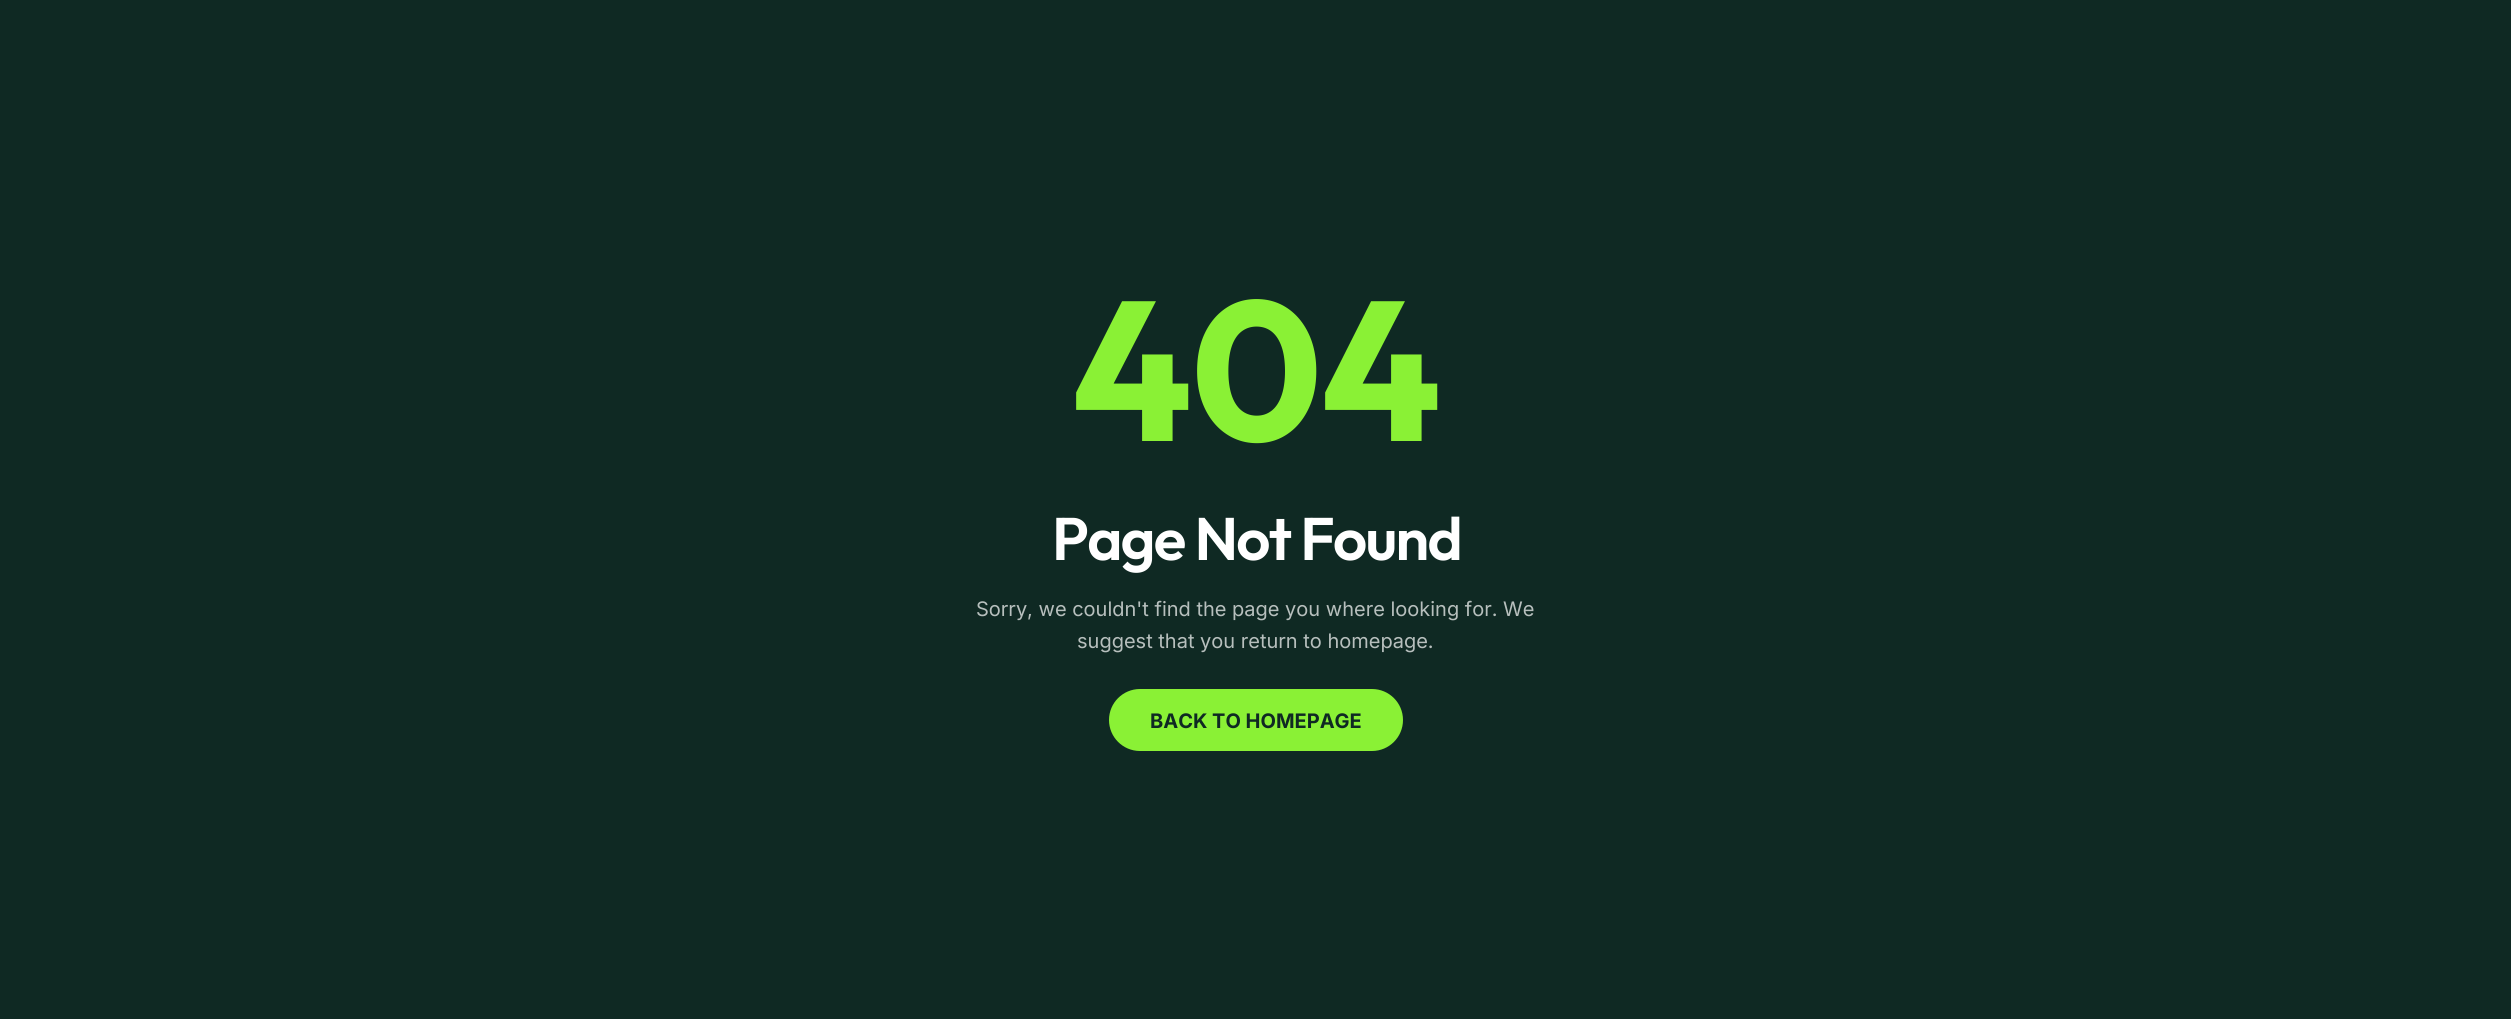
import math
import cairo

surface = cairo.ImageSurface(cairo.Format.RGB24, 2511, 1019)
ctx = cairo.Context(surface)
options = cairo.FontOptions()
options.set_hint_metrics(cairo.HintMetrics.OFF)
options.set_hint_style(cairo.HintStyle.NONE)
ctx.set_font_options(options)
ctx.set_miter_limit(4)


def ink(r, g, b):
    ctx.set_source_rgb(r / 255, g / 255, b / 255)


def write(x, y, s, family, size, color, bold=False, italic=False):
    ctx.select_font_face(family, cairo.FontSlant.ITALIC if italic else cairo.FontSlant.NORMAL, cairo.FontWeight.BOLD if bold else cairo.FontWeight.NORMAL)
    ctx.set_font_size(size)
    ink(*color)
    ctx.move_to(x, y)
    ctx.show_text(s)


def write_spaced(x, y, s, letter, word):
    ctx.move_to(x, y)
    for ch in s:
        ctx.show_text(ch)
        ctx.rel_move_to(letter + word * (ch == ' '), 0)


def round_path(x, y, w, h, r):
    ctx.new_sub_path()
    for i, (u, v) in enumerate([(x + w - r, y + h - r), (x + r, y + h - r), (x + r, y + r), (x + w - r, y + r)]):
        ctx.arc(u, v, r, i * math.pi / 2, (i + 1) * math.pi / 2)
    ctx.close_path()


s1 = dict(family="Inter", size=20, color=(183, 191, 189))
s2 = dict(family="Inter", size=20, color=(15, 41, 35), bold=True)

ink(15, 41, 35)
ctx.paint()
ctx.select_font_face("Outfit", cairo.FontSlant.NORMAL, cairo.FontWeight.BOLD)
ctx.set_font_size(198)
ink(138, 241, 53)
write_spaced(1072, 441, "404", -1.75, 0)
ctx.select_font_face("Outfit SemiBold")
ctx.set_font_size(60)
ink(255, 255, 255)
write_spaced(1052, 560, "Page Not Found", -1.75, 0)
write(976, 616, "Sorry, we couldn't find the page you where looking for. We", **s1)
write(1077, 648, "suggest that you return to homepage.", **s1)
ink(138, 241, 53)
round_path(1109, 689, 294, 62, 31)
ctx.fill()
write(1150, 728, "BACK TO HOMEPAGE", **s2)
surface.write_to_png("screenshot.png")
